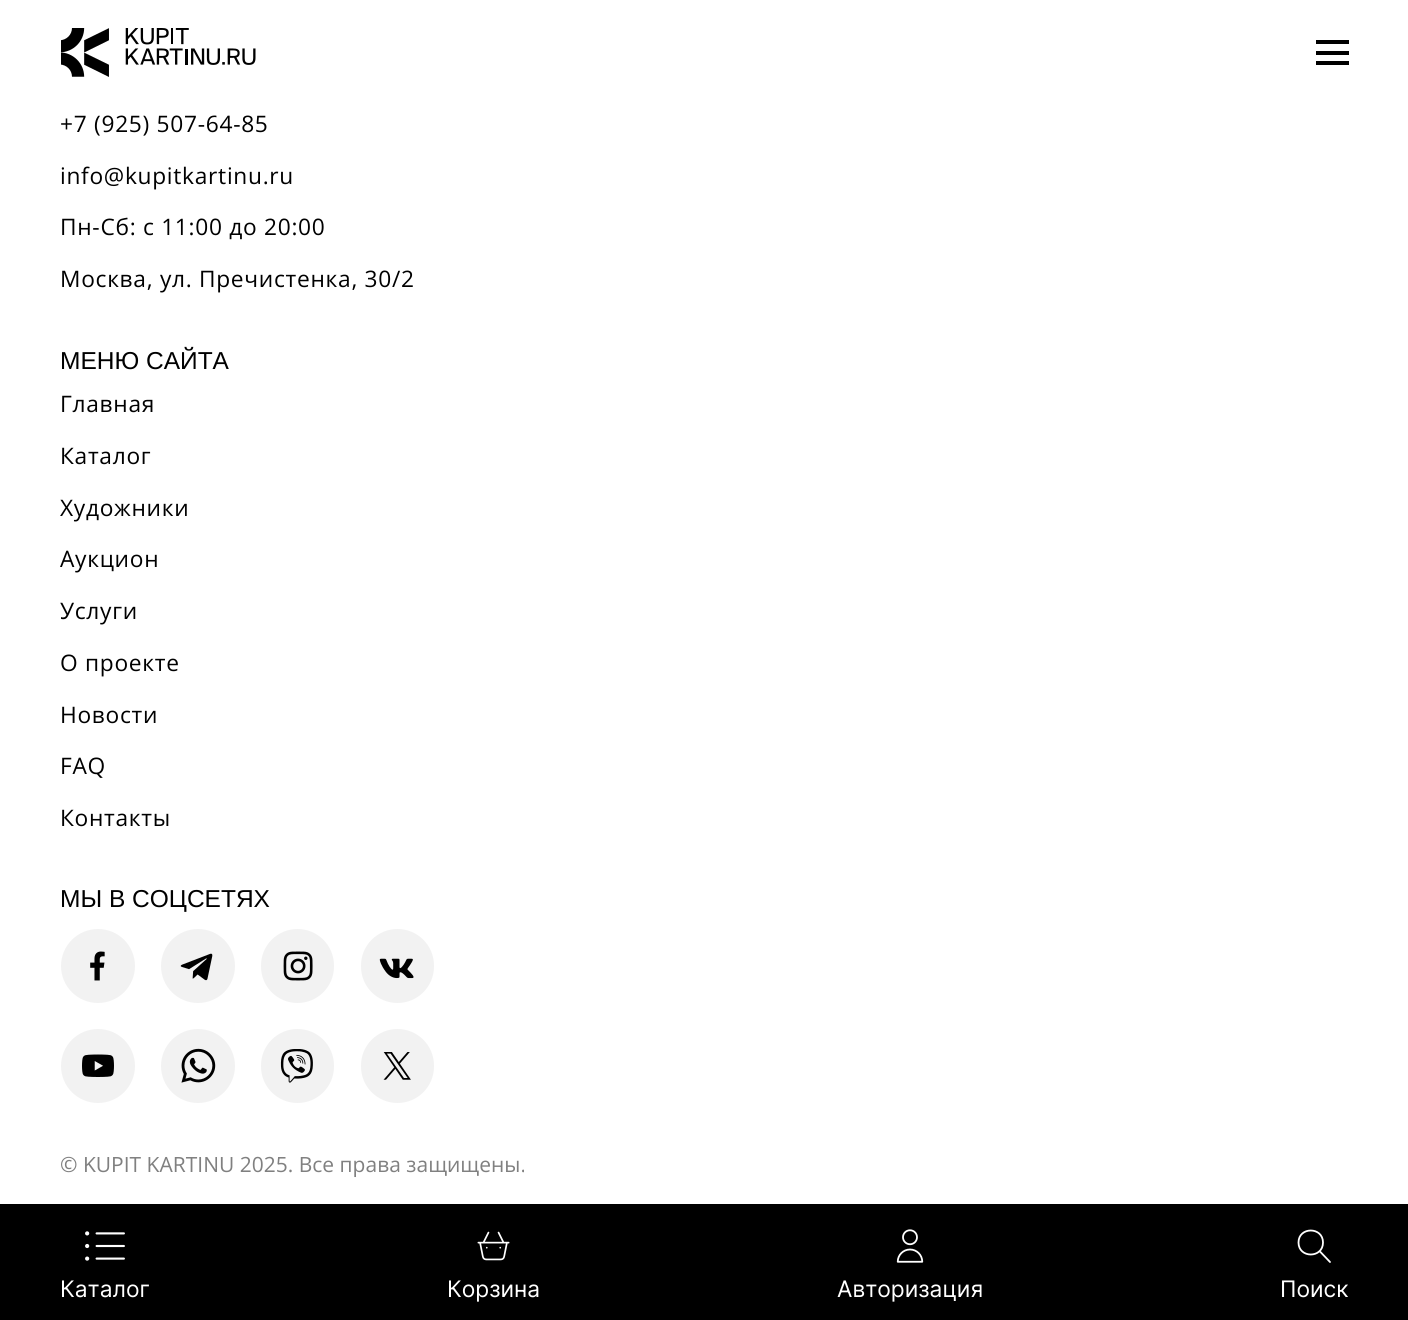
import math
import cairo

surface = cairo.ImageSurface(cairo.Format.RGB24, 1408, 1320)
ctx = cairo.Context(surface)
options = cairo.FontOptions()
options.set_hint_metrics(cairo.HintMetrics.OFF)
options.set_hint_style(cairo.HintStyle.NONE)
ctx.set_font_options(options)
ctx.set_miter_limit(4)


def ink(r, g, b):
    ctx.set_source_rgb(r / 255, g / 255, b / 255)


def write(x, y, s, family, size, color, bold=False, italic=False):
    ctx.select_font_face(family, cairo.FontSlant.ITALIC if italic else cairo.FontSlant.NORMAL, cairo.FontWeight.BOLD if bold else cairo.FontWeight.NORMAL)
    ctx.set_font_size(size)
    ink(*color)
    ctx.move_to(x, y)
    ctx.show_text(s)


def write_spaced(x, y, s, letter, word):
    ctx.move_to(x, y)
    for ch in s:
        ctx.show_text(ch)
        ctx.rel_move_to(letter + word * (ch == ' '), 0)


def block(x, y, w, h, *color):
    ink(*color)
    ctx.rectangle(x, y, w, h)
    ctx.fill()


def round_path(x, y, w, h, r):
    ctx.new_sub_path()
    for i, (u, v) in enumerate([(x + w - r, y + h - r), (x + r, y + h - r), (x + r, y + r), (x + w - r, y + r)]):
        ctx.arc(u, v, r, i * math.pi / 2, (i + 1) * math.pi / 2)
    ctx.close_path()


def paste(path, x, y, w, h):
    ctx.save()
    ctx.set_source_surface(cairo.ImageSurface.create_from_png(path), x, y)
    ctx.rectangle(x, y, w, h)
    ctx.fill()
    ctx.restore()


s1 = dict(family="Liberation Sans", size=24.5, color=(0, 0, 0))
s2 = dict(family="Open Sans", size=21, color=(128, 128, 128))
s3 = dict(family="Inter", size=22.75, color=(255, 255, 255))

ink(255, 255, 255)
ctx.paint()
ctx.select_font_face("Open Sans")
ctx.set_font_size(22.75)
ink(0, 0, 0)
write_spaced(60, 132, "+7 (925) 507-64-85", 0.7, 0)
write_spaced(60, 184, "info@kupitkartinu.ru", 0.7, 0)
write_spaced(60, 235, "Пн-Сб: с 11:00 до 20:00", 0.7, 0)
write_spaced(60, 287, "Москва, ул. Пречистенка, 30/2", 0.7, 0)
write(60, 369, "МЕНЮ САЙТА", **s1)
ctx.select_font_face("Open Sans")
ctx.set_font_size(22.75)
write_spaced(60, 412, "Главная", 0.7, 0)
write_spaced(60, 464, "Каталог", 0.7, 0)
write_spaced(60, 516, "Художники", 0.7, 0)
write_spaced(60, 567, "Аукцион", 0.7, 0)
write_spaced(60, 619, "Услуги", 0.7, 0)
write_spaced(60, 671, "О проекте", 0.7, 0)
write_spaced(60, 723, "Новости", 0.7, 0)
write_spaced(60, 774, "FAQ", 0.7, 0)
write_spaced(60, 826, "Контакты", 0.7, 0)
write(60, 907, "МЫ В СОЦСЕТЯХ", **s1)
ink(242, 242, 242)
ctx.new_path()
ctx.arc(98, 966, 37, 0, 2 * math.pi)
ctx.fill()
paste("pic1.png", 90, 951, 15, 30)
ctx.arc(198, 966, 37, 0, 2 * math.pi)
ctx.fill()
paste("pic2.png", 180, 953, 33, 28)
round_path(261, 929, 73, 74, 36.5)
ctx.fill()
paste("pic3.png", 283, 951, 30, 30)
round_path(361, 929, 73, 74, 36.5)
ctx.fill()
paste("pic4.png", 379, 958, 35, 21)
ctx.arc(98, 1066, 37, 0, 2 * math.pi)
ctx.fill()
paste("pic5.png", 82, 1054, 32, 23)
ctx.arc(198, 1066, 37, 0, 2 * math.pi)
ctx.fill()
paste("pic6.png", 181, 1048, 35, 35)
round_path(261, 1029, 73, 74, 36.5)
ctx.fill()
paste("pic7.png", 280, 1049, 33, 34)
round_path(361, 1029, 73, 74, 36.5)
ctx.fill()
paste("pic8.png", 383, 1052, 28, 28)
write(60, 1172, "© KUPIT KARTINU 2025. Все права защищены.", **s2)
paste("pic9.png", 61, 28, 195, 49)
block(1316, 40, 33, 4, 0, 0, 0)
block(1316, 51, 33, 4, 0, 0, 0)
block(1316, 61, 33, 4, 0, 0, 0)
block(0, 1204, 1408, 116, 0, 0, 0)
paste("pic10.png", 85, 1231, 40, 30)
write(60, 1297, "Каталог", **s3)
paste("pic11.png", 477, 1231, 33, 30)
write(447, 1297, "Корзина", **s3)
paste("pic12.png", 896, 1229, 28, 34)
write(837, 1297, "Авторизация", **s3)
ctx.new_path()
ctx.move_to(1319.5, 1251)
ctx.line_to(1330, 1262)
ctx.move_to(1323, 1242.5)
ctx.curve_to(1323, 1258.5, 1298.5, 1258.5, 1298.5, 1242.5)
ctx.curve_to(1298.5, 1226.5, 1323, 1226.5, 1323, 1242.5)
ctx.close_path()
ctx.set_line_width(1.8)
ctx.set_line_cap(cairo.LineCap.ROUND)
ctx.set_line_join(cairo.LineJoin.ROUND)
ctx.stroke()
write(1280, 1297, "Поиск", **s3)
surface.write_to_png("screenshot.png")
